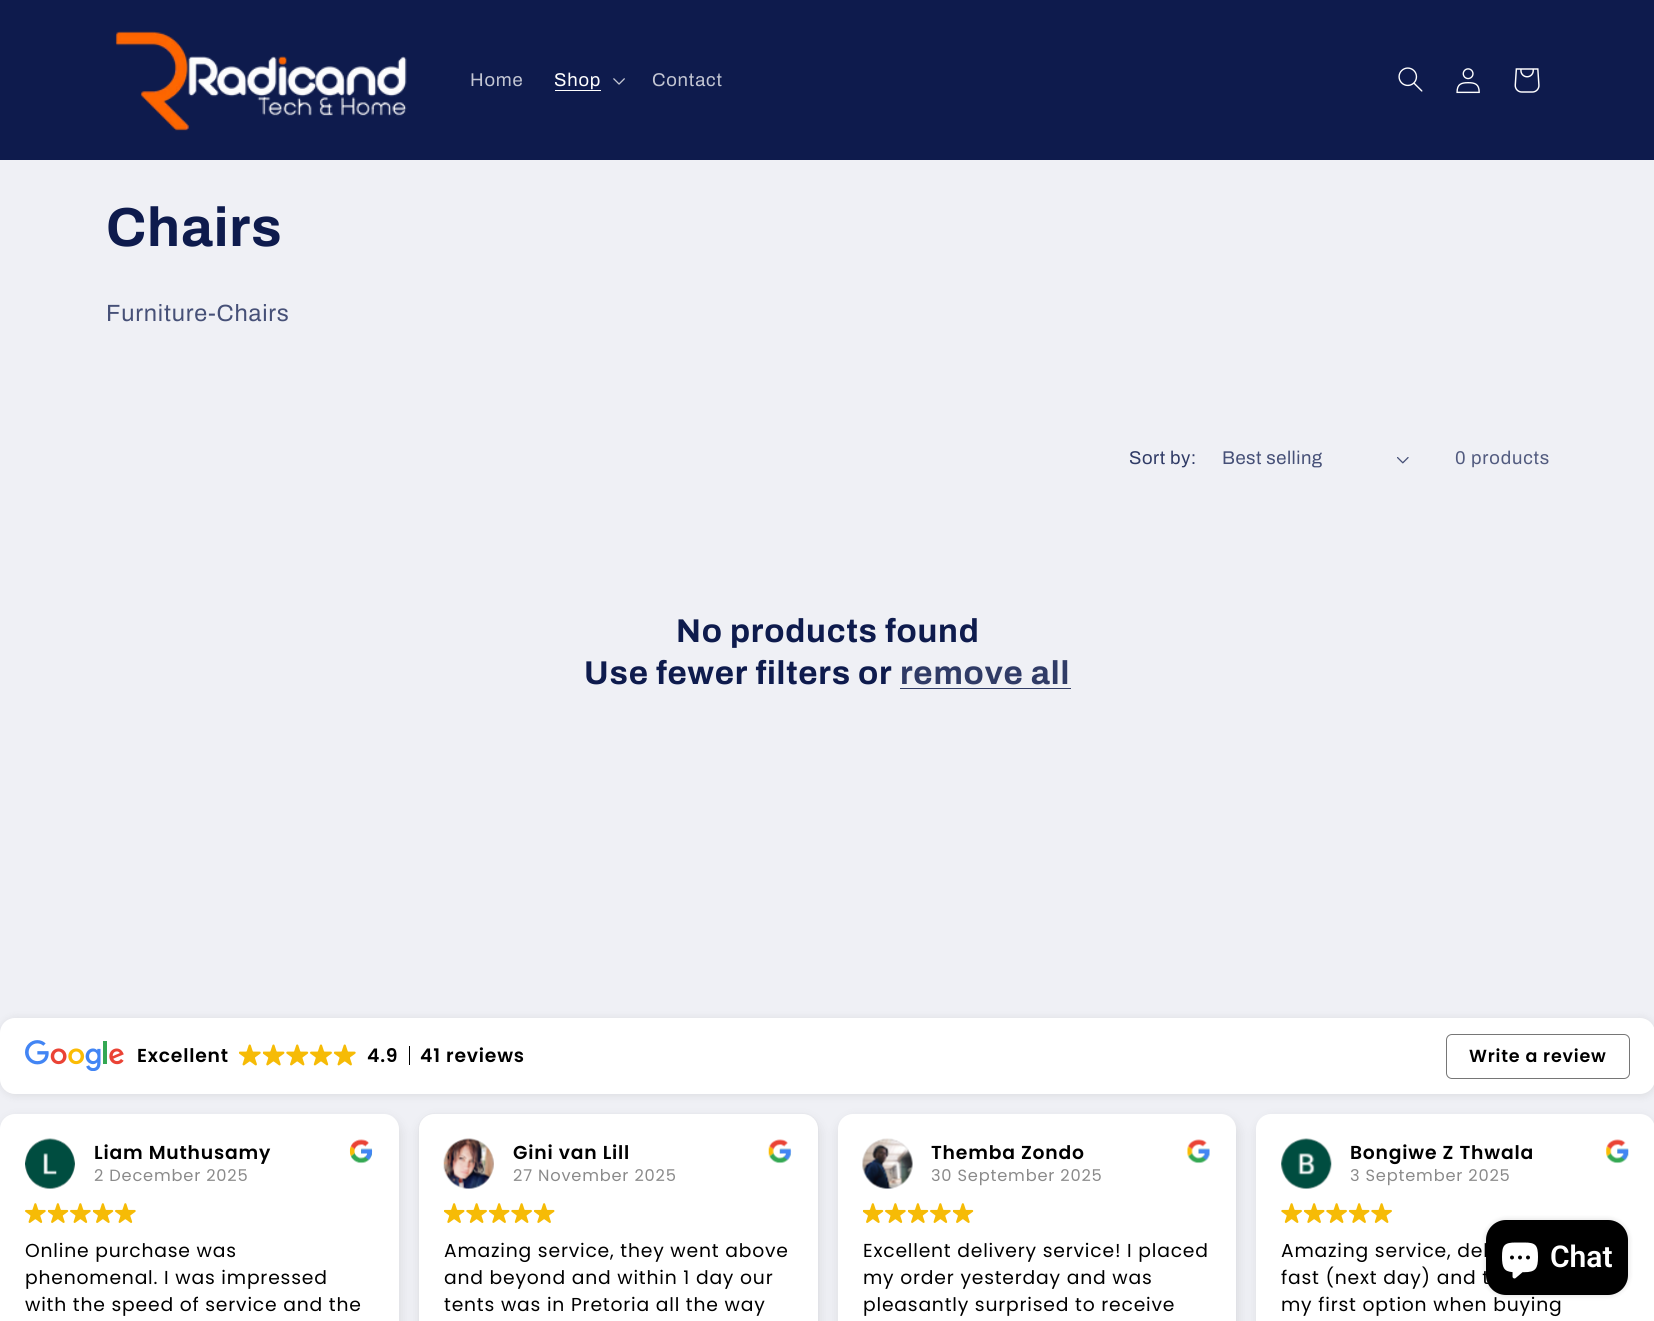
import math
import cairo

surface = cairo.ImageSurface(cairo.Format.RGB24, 1654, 1321)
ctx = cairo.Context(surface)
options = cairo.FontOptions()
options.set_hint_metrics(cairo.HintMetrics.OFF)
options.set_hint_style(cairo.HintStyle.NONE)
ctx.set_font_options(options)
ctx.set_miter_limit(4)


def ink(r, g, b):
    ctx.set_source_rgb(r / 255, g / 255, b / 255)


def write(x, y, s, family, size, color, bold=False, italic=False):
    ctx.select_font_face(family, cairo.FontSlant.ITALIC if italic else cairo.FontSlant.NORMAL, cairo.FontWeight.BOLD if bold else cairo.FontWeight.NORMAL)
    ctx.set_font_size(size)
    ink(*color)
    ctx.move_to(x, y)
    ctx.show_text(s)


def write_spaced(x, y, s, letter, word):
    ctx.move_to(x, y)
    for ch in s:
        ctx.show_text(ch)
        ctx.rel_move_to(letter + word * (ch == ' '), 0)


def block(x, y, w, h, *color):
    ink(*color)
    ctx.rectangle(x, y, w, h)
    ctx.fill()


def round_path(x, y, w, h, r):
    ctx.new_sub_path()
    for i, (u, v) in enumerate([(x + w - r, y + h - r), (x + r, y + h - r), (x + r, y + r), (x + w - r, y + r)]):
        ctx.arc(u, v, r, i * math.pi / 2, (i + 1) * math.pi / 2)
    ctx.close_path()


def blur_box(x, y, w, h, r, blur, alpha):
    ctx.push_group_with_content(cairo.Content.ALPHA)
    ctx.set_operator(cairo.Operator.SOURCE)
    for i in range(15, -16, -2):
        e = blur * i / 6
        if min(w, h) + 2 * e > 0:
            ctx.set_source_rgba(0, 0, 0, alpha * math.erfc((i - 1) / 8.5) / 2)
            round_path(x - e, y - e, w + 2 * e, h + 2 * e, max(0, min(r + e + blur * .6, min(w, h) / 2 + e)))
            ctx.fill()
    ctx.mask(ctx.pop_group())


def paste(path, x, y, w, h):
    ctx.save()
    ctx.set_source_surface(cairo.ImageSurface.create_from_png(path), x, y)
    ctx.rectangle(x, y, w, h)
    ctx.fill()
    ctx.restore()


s1 = dict(family="Roboto SemiBold", size=30, color=(255, 255, 255))

ink(239, 240, 245)
ctx.paint()
block(0, 0, 1654, 160, 14, 27, 77)
paste("pic1.png", 115, 31, 292, 100)
ctx.select_font_face("Archivo")
ctx.set_font_size(18.5)
ink(195, 198, 211)
write_spaced(470, 86, "Home", 0.8, 0)
ink(255, 255, 255)
write_spaced(554, 86, "Shop", 0.8, 0)
block(555, 90, 46, 1, 255, 255, 255)
paste("pic2.png", 613, 78, 12, 7)
ink(195, 198, 211)
write_spaced(652, 86, "Contact", 0.8, 0)
paste("pic3.png", 1398, 67, 25, 25)
paste("pic4.png", 1456, 68, 24, 26)
paste("pic5.png", 1514, 68, 26, 25)
ctx.select_font_face("Archivo", cairo.FontSlant.NORMAL, cairo.FontWeight.BOLD)
ctx.set_font_size(55)
ink(14, 27, 77)
write_spaced(106, 246, "Chairs", 0.8, 0)
ctx.select_font_face("Archivo")
ctx.set_font_size(23.5)
ink(70, 80, 119)
write_spaced(106, 321, "Furniture-Chairs", 0.8, 0)
ctx.set_font_size(18.5)
ink(48, 59, 102)
write_spaced(1129, 464, "Sort by:", 0.5, 0)
ink(70, 80, 119)
write_spaced(1222, 464, "Best selling", 0.5, 0)
paste("pic6.png", 1397, 457, 12, 7)
ink(82, 91, 127)
write_spaced(1455, 464, "0 products", 0.8, 0)
ctx.select_font_face("Archivo", cairo.FontSlant.NORMAL, cairo.FontWeight.BOLD)
ctx.set_font_size(33)
ink(14, 27, 77)
write_spaced(676, 642, "No products found", 0.8, 0)
write_spaced(584, 684, "Use fewer filters or", 0.8, 0)
ink(48, 59, 102)
write_spaced(900, 684, "remove all", 0.8, 0)
block(900, 688, 171, 1, 48, 59, 102)
ink(0, 0, 0)
blur_box(1, 1019, 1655, 76, 15, 4.5, 0.1)
ink(255, 255, 255)
round_path(0, 1018, 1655, 76, 15)
ctx.fill()
paste("pic7.png", 25, 1040, 99, 31)
ctx.select_font_face("Poppins SemiBold")
ctx.set_font_size(18.75)
ink(0, 0, 0)
write_spaced(137, 1062, "Excellent", 0.8, 0)
paste("pic8.png", 239, 1044, 22, 22)
paste("pic9.png", 263, 1044, 22, 22)
paste("pic10.png", 286, 1044, 23, 22)
paste("pic11.png", 310, 1044, 22, 22)
paste("pic8.png", 334, 1044, 22, 22)
write_spaced(367, 1062, "4.9", 0.8, 0)
block(409, 1046, 1, 19, 0, 0, 0)
write_spaced(420, 1062, "41 reviews", 0.8, 0)
round_path(1446.5, 1034.5, 183, 44, 5.5)
ink(118, 118, 118)
ctx.set_line_width(1)
ctx.stroke()
ctx.set_font_size(17.5)
ink(0, 0, 0)
write_spaced(1469, 1062, "Write a review", 0.8, 0)
ink(0, 0, 0)
blur_box(1, 1119, 399, 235, 15, 6, 0.1)
ink(255, 255, 255)
round_path(0, 1114, 399, 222, 15)
ctx.fill()
paste("pic12.png", 25, 1138, 50, 51)
ctx.set_font_size(18.75)
ink(0, 0, 0)
write_spaced(94, 1159, "Liam Muthusamy", 0.8, 0)
ctx.select_font_face("Poppins")
ctx.set_font_size(16.25)
ink(138, 138, 138)
write_spaced(94, 1181, "2 December 2025", 0.8, 0)
paste("pic13.png", 349, 1139, 24, 25)
paste("pic14.png", 25, 1203, 21, 20)
paste("pic15.png", 48, 1203, 21, 20)
paste("pic14.png", 70, 1203, 21, 20)
paste("pic15.png", 93, 1203, 21, 20)
paste("pic14.png", 115, 1203, 21, 20)
ctx.set_font_size(18.75)
ink(0, 0, 0)
write_spaced(25, 1257, "Online purchase was", 0.8, 0)
write_spaced(25, 1284, "phenomenal. I was impressed", 0.8, 0)
write_spaced(25, 1311, "with the speed of service and the", 0.8, 0)
ink(0, 0, 0)
blur_box(419, 1114, 399, 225, 15, 1, 0.05)
blur_box(420, 1119, 399, 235, 15, 6, 0.1)
ink(255, 255, 255)
round_path(419, 1114, 399, 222, 15)
ctx.fill()
paste("pic16.png", 443, 1138, 51, 51)
ctx.select_font_face("Poppins SemiBold")
ink(0, 0, 0)
write_spaced(513, 1159, "Gini van Lill", 0.8, 0)
ctx.select_font_face("Poppins")
ctx.set_font_size(16.25)
ink(138, 138, 138)
write_spaced(513, 1181, "27 November 2025", 0.8, 0)
paste("pic17.png", 768, 1139, 24, 25)
paste("pic18.png", 444, 1203, 21, 20)
paste("pic19.png", 466, 1203, 21, 20)
paste("pic18.png", 489, 1203, 21, 20)
paste("pic19.png", 511, 1203, 21, 20)
paste("pic18.png", 534, 1203, 21, 20)
ctx.set_font_size(18.75)
ink(0, 0, 0)
write_spaced(444, 1257, "Amazing service, they went above", 0.8, 0)
write_spaced(444, 1284, "and beyond and within 1 day our", 0.8, 0)
write_spaced(444, 1311, "tents was in Pretoria all the way", 0.8, 0)
ink(0, 0, 0)
blur_box(839, 1119, 399, 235, 15, 6, 0.1)
ink(255, 255, 255)
round_path(838, 1114, 398, 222, 15)
ctx.fill()
paste("pic20.png", 862, 1138, 51, 51)
ctx.select_font_face("Poppins SemiBold")
ink(0, 0, 0)
write_spaced(931, 1159, "Themba Zondo", 0.8, 0)
ctx.select_font_face("Poppins")
ctx.set_font_size(16.25)
ink(138, 138, 138)
write_spaced(931, 1181, "30 September 2025", 0.8, 0)
paste("pic21.png", 1187, 1139, 23, 25)
paste("pic15.png", 863, 1203, 21, 20)
paste("pic14.png", 885, 1203, 21, 20)
paste("pic15.png", 908, 1203, 21, 20)
paste("pic14.png", 930, 1203, 21, 20)
paste("pic15.png", 953, 1203, 21, 20)
ctx.set_font_size(18.75)
ink(0, 0, 0)
write_spaced(863, 1257, "Excellent delivery service! I placed", 0.8, 0)
write_spaced(863, 1284, "my order yesterday and was", 0.8, 0)
write_spaced(863, 1311, "pleasantly surprised to receive", 0.8, 0)
ink(0, 0, 0)
blur_box(1258, 1119, 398, 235, 15, 6, 0.1)
ink(255, 255, 255)
round_path(1256, 1114, 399, 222, 15)
ctx.fill()
paste("pic22.png", 1281, 1138, 51, 51)
ctx.select_font_face("Poppins SemiBold")
ink(0, 0, 0)
write_spaced(1350, 1159, "Bongiwe Z Thwala", 0.8, 0)
ctx.select_font_face("Poppins")
ctx.set_font_size(16.25)
ink(138, 138, 138)
write_spaced(1350, 1181, "3 September 2025", 0.8, 0)
paste("pic23.png", 1605, 1139, 24, 25)
paste("pic19.png", 1281, 1203, 21, 20)
paste("pic18.png", 1304, 1203, 21, 20)
paste("pic19.png", 1326, 1203, 21, 20)
paste("pic18.png", 1349, 1203, 21, 20)
paste("pic19.png", 1371, 1203, 21, 20)
ctx.set_font_size(18.75)
ink(0, 0, 0)
write_spaced(1281, 1257, "Amazing service, del", 0.8, 0)
write_spaced(1281, 1284, "fast (next day) and t", 0.8, 0)
write_spaced(1281, 1311, "my first option when buying", 0.8, 0)
ink(0, 0, 0)
blur_box(1486, 1220, 142, 75, 20, 3, 0.15)
ink(0, 0, 0)
round_path(1486, 1220, 142, 75, 20)
ctx.fill()
paste("pic24.png", 1502, 1242, 36, 37)
write(1550, 1267, "Chat", **s1)
surface.write_to_png("screenshot.png")
